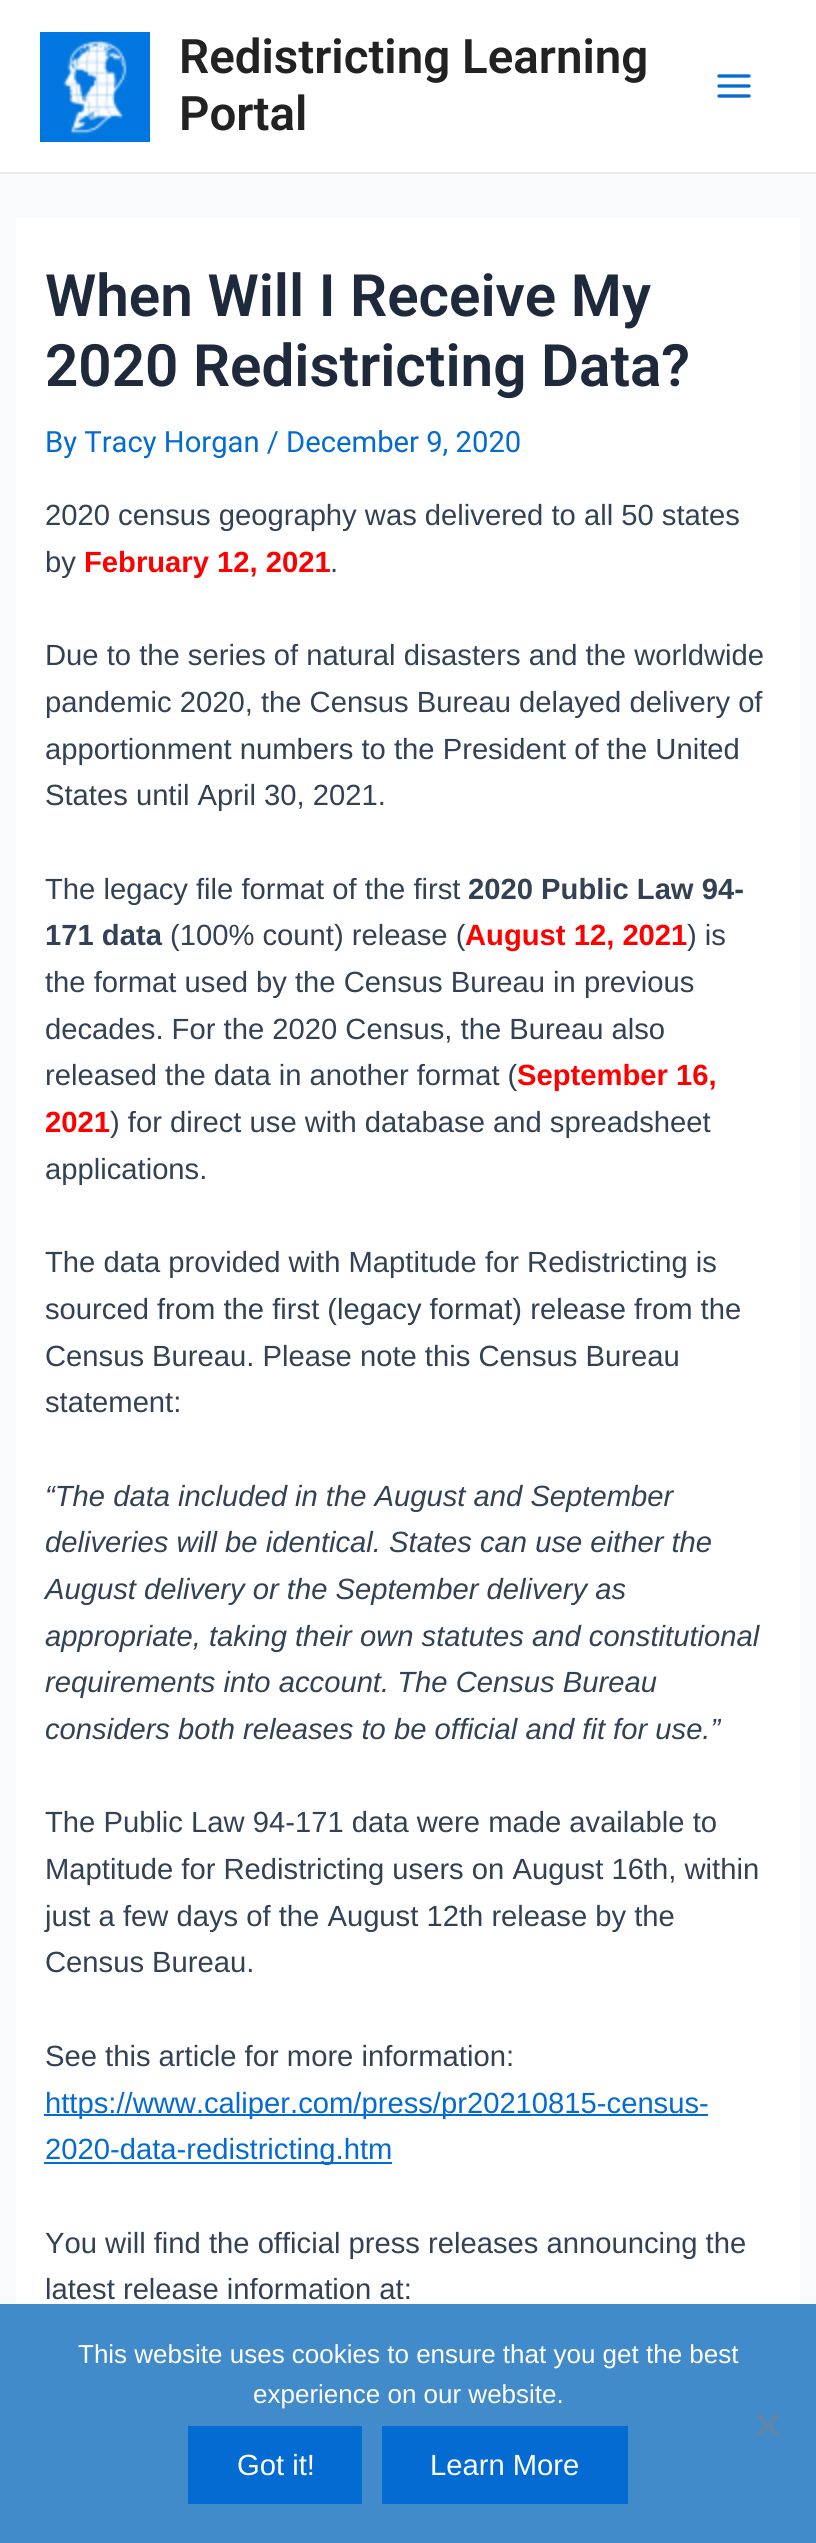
import math
import cairo

surface = cairo.ImageSurface(cairo.Format.RGB24, 816, 2543)
ctx = cairo.Context(surface)
options = cairo.FontOptions()
options.set_hint_metrics(cairo.HintMetrics.OFF)
options.set_hint_style(cairo.HintStyle.NONE)
ctx.set_font_options(options)
ctx.set_miter_limit(4)


def ink(r, g, b):
    ctx.set_source_rgb(r / 255, g / 255, b / 255)


def write(x, y, s, family, size, color, bold=False, italic=False):
    ctx.select_font_face(family, cairo.FontSlant.ITALIC if italic else cairo.FontSlant.NORMAL, cairo.FontWeight.BOLD if bold else cairo.FontWeight.NORMAL)
    ctx.set_font_size(size)
    ink(*color)
    ctx.move_to(x, y)
    ctx.show_text(s)


def block(x, y, w, h, *color):
    ink(*color)
    ctx.rectangle(x, y, w, h)
    ctx.fill()


def paste(path, x, y, w, h):
    ctx.save()
    ctx.set_source_surface(cairo.ImageSurface.create_from_png(path), x, y)
    ctx.rectangle(x, y, w, h)
    ctx.fill()
    ctx.restore()


s1 = dict(family="Roboto SemiBold", size=47.5, color=(34, 34, 34))
s2 = dict(family="Roboto SemiBold", size=58.4, color=(30, 41, 59))
s3 = dict(family="Roboto", size=29.2, color=(4, 107, 210))
s4 = dict(family="Liberation Sans", size=29.2, color=(51, 65, 85))
s5 = dict(family="Liberation Sans", size=29.2, color=(255, 0, 0), bold=True)
s6 = dict(family="Liberation Sans", size=29.2, color=(51, 65, 85), bold=True)
s7 = dict(family="Liberation Sans", size=29.2, color=(51, 65, 85), italic=True)
s8 = dict(family="Liberation Sans", size=29.2, color=(4, 107, 210))
s9 = dict(family="Liberation Sans", size=26, color=(255, 255, 255))
s10 = dict(family="Liberation Sans", size=29.2, color=(255, 255, 255))

ink(249, 250, 251)
ctx.paint()
block(0, 0, 816, 172, 255, 255, 255)
block(0, 172, 816, 2, 234, 234, 234)
paste("pic1.png", 40, 32, 110, 110)
write(179, 73, "Redistricting Learning", **s1)
write(179, 130, "Portal", **s1)
paste("pic2.png", 717, 74, 34, 24)
block(16, 218, 784, 2086, 255, 255, 255)
write(45, 316, "When Will I Receive My", **s2)
write(45, 386, "2020 Redistricting Data?", **s2)
write(45, 452, "By Tracy Horgan / December 9, 2020", **s3)
write(45, 525, "2020 census geography was delivered to all 50 states", **s4)
write(45, 572, "by", **s4)
write(84, 572, "February 12, 2021", **s5)
write(330, 572, ".", **s4)
write(45, 665, "Due to the series of natural disasters and the worldwide", **s4)
write(45, 712, "pandemic 2020, the Census Bureau delayed delivery of", **s4)
write(45, 759, "apportionment numbers to the President of the United", **s4)
write(45, 805, "States until April 30, 2021.", **s4)
write(45, 899, "The legacy file format of the first", **s4)
write(468, 899, "2020 Public Law 94-", **s6)
write(45, 945, "171 data", **s6)
write(170, 945, "(100% count) release (", **s4)
write(465, 945, "August 12, 2021", **s5)
write(687, 945, ") is", **s4)
write(45, 992, "the format used by the Census Bureau in previous", **s4)
write(45, 1039, "decades. For the 2020 Census, the Bureau also", **s4)
write(45, 1085, "released the data in another format (", **s4)
write(517, 1085, "September 16,", **s5)
write(45, 1132, "2021", **s5)
write(110, 1132, ") for direct use with database and spreadsheet", **s4)
write(45, 1179, "applications.", **s4)
write(45, 1272, "The data provided with Maptitude for Redistricting is", **s4)
write(45, 1319, "sourced from the first (legacy format) release from the", **s4)
write(45, 1366, "Census Bureau. Please note this Census Bureau", **s4)
write(45, 1412, "statement:", **s4)
write(45, 1506, "“The data included in the August and September", **s7)
write(45, 1552, "deliveries will be identical. States can use either the", **s7)
write(45, 1599, "August delivery or the September delivery as", **s7)
write(45, 1646, "appropriate, taking their own statutes and constitutional", **s7)
write(45, 1692, "requirements into account. The Census Bureau", **s7)
write(45, 1739, "considers both releases to be official and fit for use.”", **s7)
write(45, 1832, "The Public Law 94-171 data were made available to", **s4)
write(45, 1879, "Maptitude for Redistricting users on August 16th, within", **s4)
write(45, 1926, "just a few days of the August 12th release by the", **s4)
write(45, 1972, "Census Bureau.", **s4)
write(45, 2066, "See this article for more information:", **s4)
block(44, 2114, 664, 2, 4, 107, 210)
write(45, 2113, "https://www.caliper.com/press/pr20210815-census-", **s8)
block(44, 2162, 348, 2, 4, 107, 210)
write(45, 2159, "2020-data-redistricting.htm", **s8)
write(45, 2253, "You will find the official press releases announcing the", **s4)
write(45, 2299, "latest release information at:", **s4)
block(0, 2304, 816, 239, 66, 139, 202)
write(78, 2363, "This website uses cookies to ensure that you get the best", **s9)
write(253, 2403, "experience on our website.", **s9)
ink(97, 134, 165)
ctx.new_path()
ctx.move_to(777, 2413.5)
ctx.line_to(780, 2416)
ctx.line_to(759, 2437.5)
ctx.line_to(756, 2434.5)
ctx.close_path()
ctx.fill()
ctx.new_path()
ctx.move_to(756, 2416)
ctx.line_to(759, 2413.5)
ctx.line_to(780, 2434.5)
ctx.line_to(777, 2437.5)
ctx.close_path()
ctx.fill()
block(188, 2426, 174, 78, 4, 107, 210)
write(237, 2475, "Got it!", **s10)
block(382, 2426, 246, 78, 4, 107, 210)
write(430, 2475, "Learn More", **s10)
surface.write_to_png("screenshot.png")
